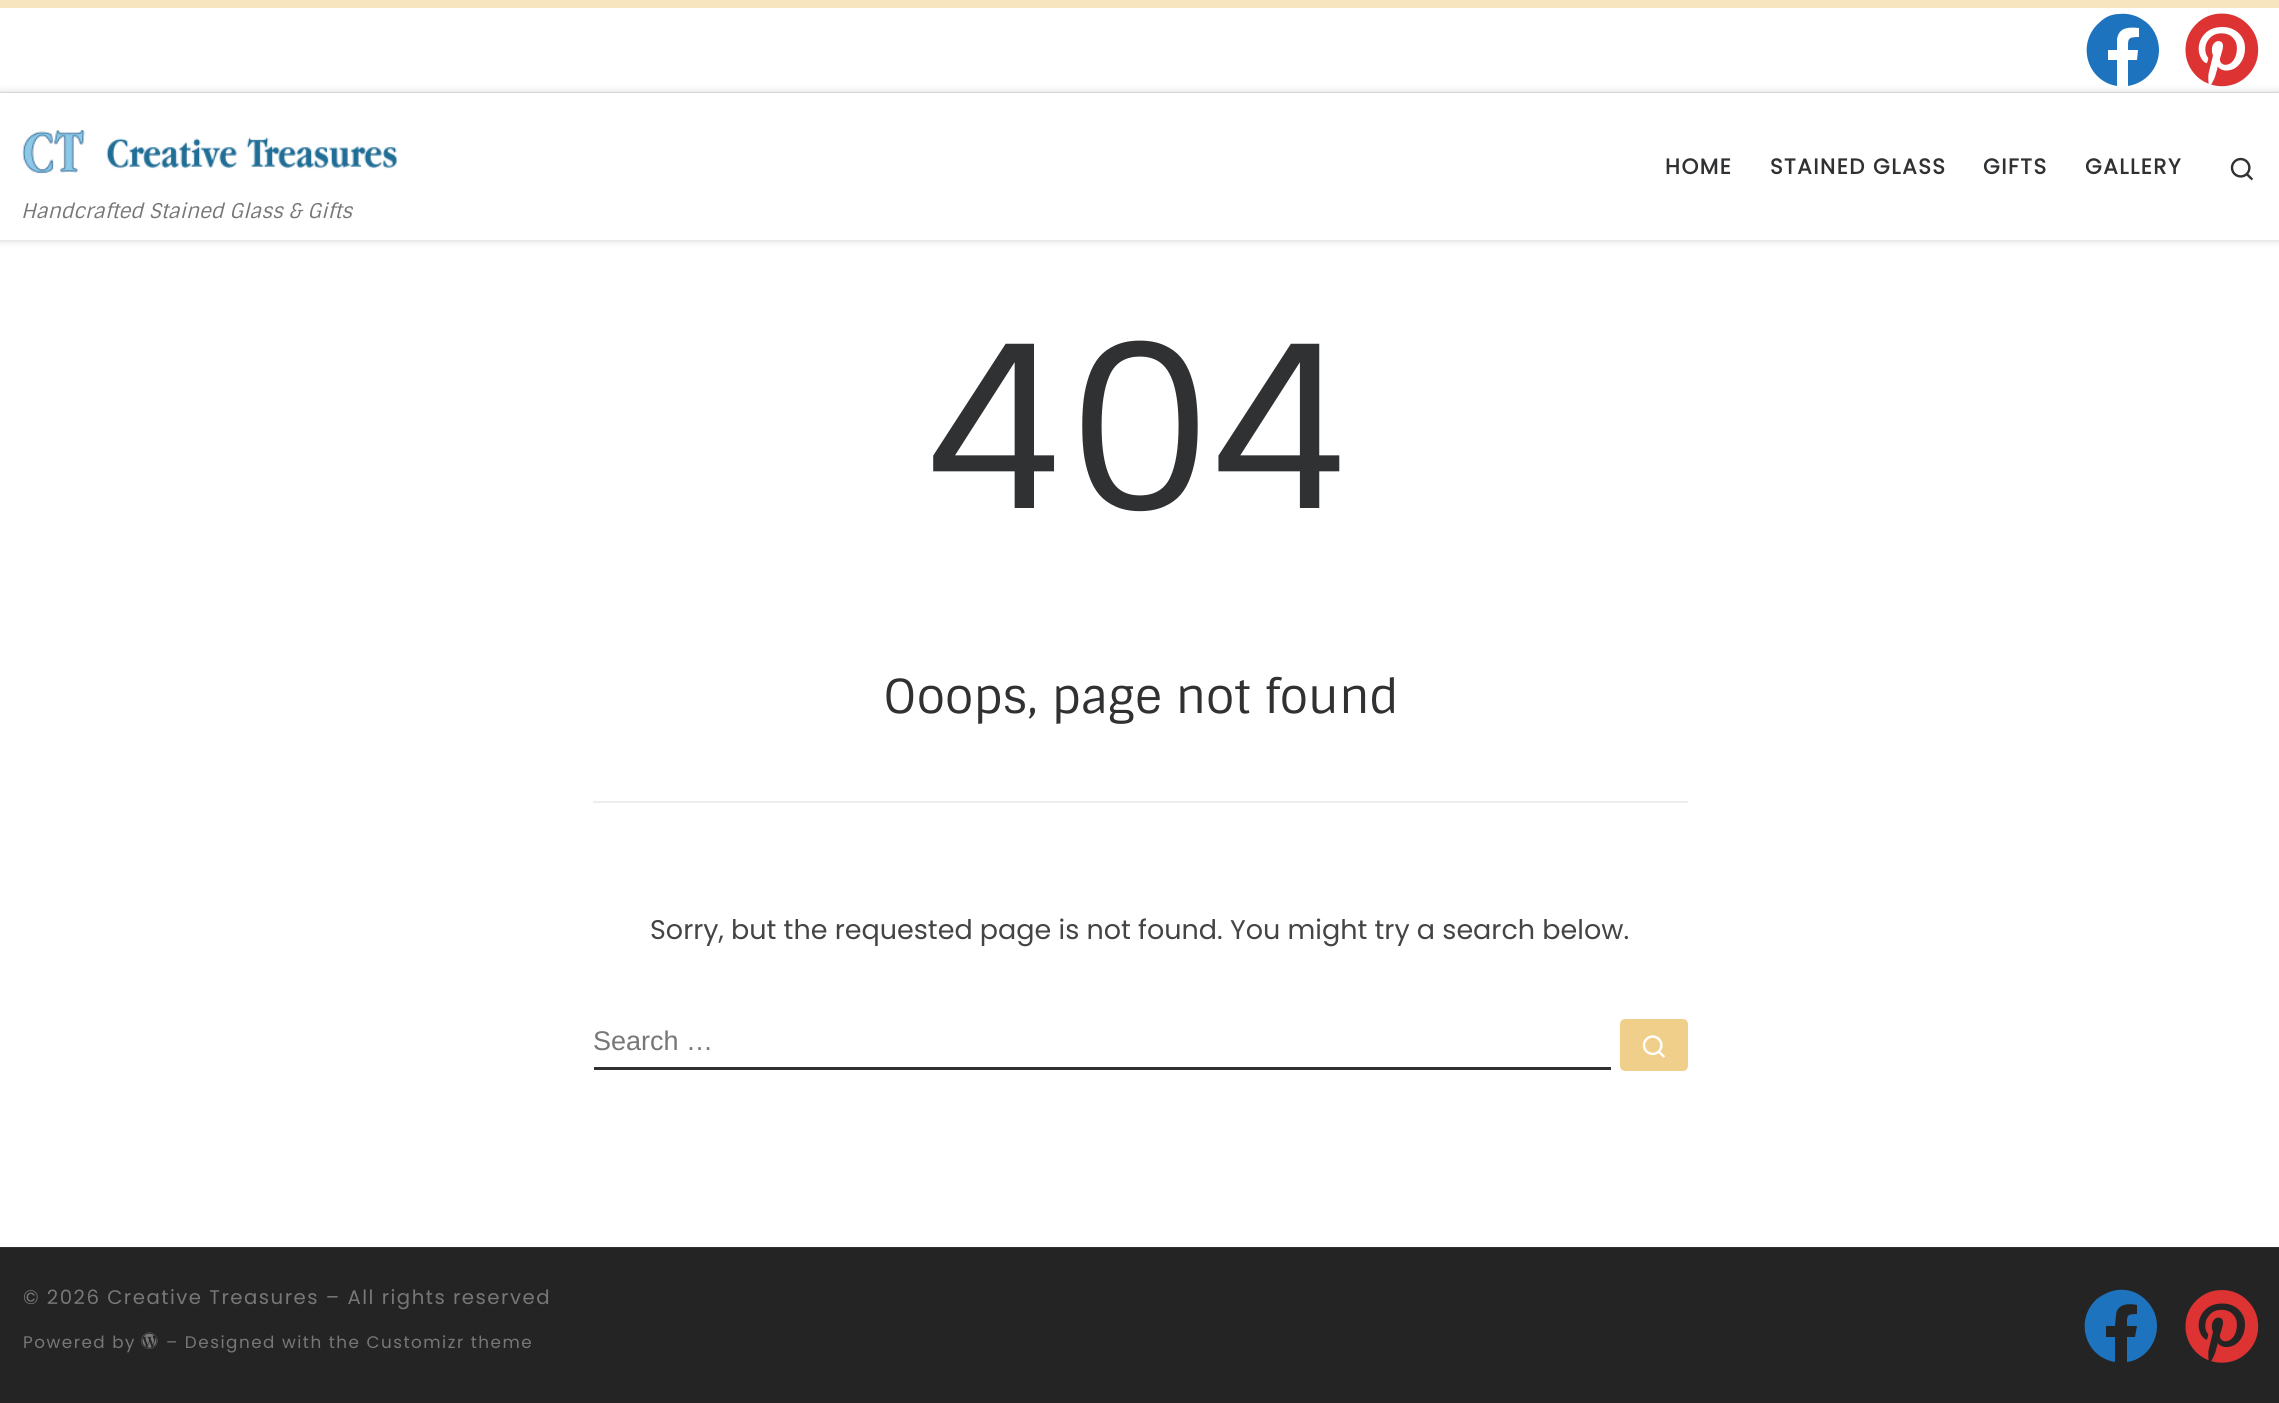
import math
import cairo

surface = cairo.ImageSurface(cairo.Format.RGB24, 2279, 1403)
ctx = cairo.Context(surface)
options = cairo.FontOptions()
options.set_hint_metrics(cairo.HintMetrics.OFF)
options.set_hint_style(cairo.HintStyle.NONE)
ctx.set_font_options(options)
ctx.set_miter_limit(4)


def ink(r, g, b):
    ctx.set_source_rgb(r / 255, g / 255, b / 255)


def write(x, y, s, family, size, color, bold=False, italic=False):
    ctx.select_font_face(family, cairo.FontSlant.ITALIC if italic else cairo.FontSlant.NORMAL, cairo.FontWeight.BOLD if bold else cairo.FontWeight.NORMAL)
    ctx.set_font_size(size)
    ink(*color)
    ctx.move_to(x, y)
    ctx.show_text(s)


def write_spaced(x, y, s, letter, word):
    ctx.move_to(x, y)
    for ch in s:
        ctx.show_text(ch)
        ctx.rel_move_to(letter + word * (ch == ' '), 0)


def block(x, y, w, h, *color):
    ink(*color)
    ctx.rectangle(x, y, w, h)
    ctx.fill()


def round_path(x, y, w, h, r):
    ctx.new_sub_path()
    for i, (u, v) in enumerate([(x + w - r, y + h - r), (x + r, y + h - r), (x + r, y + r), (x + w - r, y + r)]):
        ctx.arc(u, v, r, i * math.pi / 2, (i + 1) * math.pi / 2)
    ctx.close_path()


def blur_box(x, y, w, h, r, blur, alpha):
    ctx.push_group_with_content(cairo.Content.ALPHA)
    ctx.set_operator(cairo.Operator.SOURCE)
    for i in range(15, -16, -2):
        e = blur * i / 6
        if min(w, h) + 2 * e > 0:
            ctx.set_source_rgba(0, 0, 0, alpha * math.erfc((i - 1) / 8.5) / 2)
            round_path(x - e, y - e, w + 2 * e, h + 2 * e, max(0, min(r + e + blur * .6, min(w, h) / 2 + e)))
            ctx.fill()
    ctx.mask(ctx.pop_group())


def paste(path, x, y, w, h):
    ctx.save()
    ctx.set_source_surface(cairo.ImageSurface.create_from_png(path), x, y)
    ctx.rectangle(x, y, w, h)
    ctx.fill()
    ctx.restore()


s1 = dict(family="Sintony", size=20.25, color=(119, 119, 119), italic=True)
s2 = dict(family="Sintony", size=225, color=(48, 49, 51))
s3 = dict(family="Sintony", size=46.75, color=(48, 49, 51))
s4 = dict(family="Poppins", size=27, color=(68, 68, 68))
s5 = dict(family="Liberation Sans", size=27, color=(119, 119, 119))

ink(255, 255, 255)
ctx.paint()
block(0, 0, 2279, 8, 247, 229, 192)
block(0, 92, 2279, 1, 236, 236, 236)
ink(0, 0, 0)
blur_box(0, 93, 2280, 147, 0, 4, 0.2)
ink(30, 115, 190)
ctx.new_path()
ctx.move_to(2159, 50)
ctx.curve_to(2159, 68, 2146, 83, 2128, 86)
ctx.line_to(2128, 60)
ctx.line_to(2137, 60)
ctx.line_to(2138, 50)
ctx.line_to(2128, 50)
ctx.curve_to(2128, 39, 2127, 37, 2139, 37)
ctx.line_to(2139, 28)
ctx.curve_to(2129, 27, 2119, 27, 2117, 39)
ctx.line_to(2117, 50)
ctx.line_to(2108, 50)
ctx.line_to(2108, 60)
ctx.line_to(2117, 60)
ctx.line_to(2117, 86)
ctx.curve_to(2086, 81, 2076, 42, 2100, 22)
ctx.curve_to(2105, 17, 2112, 14, 2119, 14)
ctx.curve_to(2127, 13, 2136, 15, 2143, 20)
ctx.curve_to(2153, 26, 2159, 38, 2159, 50)
ctx.close_path()
ctx.fill()
paste("pic1.png", 2185, 13, 74, 74)
block(0, 93, 2279, 147, 255, 255, 255)
ctx.select_font_face("Poppins", cairo.FontSlant.NORMAL, cairo.FontWeight.BOLD)
ctx.set_font_size(21.5)
ink(48, 49, 51)
write_spaced(1665, 174, "HOME", 1.5, 0)
write_spaced(1770, 174, "STAINED GLASS", 1.5, 0)
write_spaced(1983, 174, "GIFTS", 1.5, 0)
write_spaced(2085, 174, "GALLERY", 1.5, 0)
paste("pic2.png", 2230, 157, 24, 24)
paste("pic3.png", 22, 130, 376, 44)
write(21, 218, "Handcrafted Stained Glass & Gifts", **s1)
write(926, 508, "404", **s2)
write(883, 713, "Ooops, page not found", **s3)
block(593, 801, 1095, 2, 236, 238, 239)
write(650, 939, "Sorry, but the requested page is not found. You might try a search below.", **s4)
block(594, 1067, 1017, 3, 49, 49, 49)
write(593, 1050, "Search …", **s5)
ink(240, 207, 138)
round_path(1621.5, 1020.5, 65, 49, 3.5)
ctx.fill_preserve()
ctx.set_line_width(3)
ctx.stroke()
paste("pic4.png", 1642, 1035, 23, 23)
block(0, 1247, 2279, 1, 49, 49, 49)
block(0, 1248, 2279, 155, 36, 36, 36)
ctx.select_font_face("Poppins")
ctx.set_font_size(19.7)
ink(119, 119, 119)
write_spaced(23, 1304, "© 2026 Creative Treasures – All rights reserved", 1.5, 0)
ctx.set_font_size(16.8)
write_spaced(23, 1348, "Powered by", 1.5, 0)
paste("pic5.png", 141, 1332, 17, 17)
write_spaced(166, 1348, "– Designed with the Customizr theme", 1.5, 0)
ink(30, 115, 190)
ctx.new_path()
ctx.move_to(2157, 1326)
ctx.curve_to(2157, 1344, 2144, 1360, 2127, 1362)
ctx.line_to(2127, 1337)
ctx.line_to(2135, 1337)
ctx.line_to(2137, 1326)
ctx.line_to(2127, 1326)
ctx.curve_to(2127, 1316, 2126, 1314, 2137, 1314)
ctx.line_to(2137, 1305)
ctx.curve_to(2128, 1303, 2117, 1304, 2116, 1315)
ctx.line_to(2115, 1326)
ctx.line_to(2106, 1326)
ctx.line_to(2106, 1337)
ctx.line_to(2115, 1337)
ctx.line_to(2115, 1362)
ctx.curve_to(2084, 1357, 2074, 1318, 2098, 1298)
ctx.curve_to(2104, 1294, 2110, 1291, 2117, 1290)
ctx.curve_to(2126, 1289, 2134, 1291, 2141, 1296)
ctx.curve_to(2151, 1303, 2157, 1314, 2157, 1326)
ctx.close_path()
ctx.fill()
paste("pic6.png", 2185, 1290, 74, 73)
surface.write_to_png("screenshot.png")
